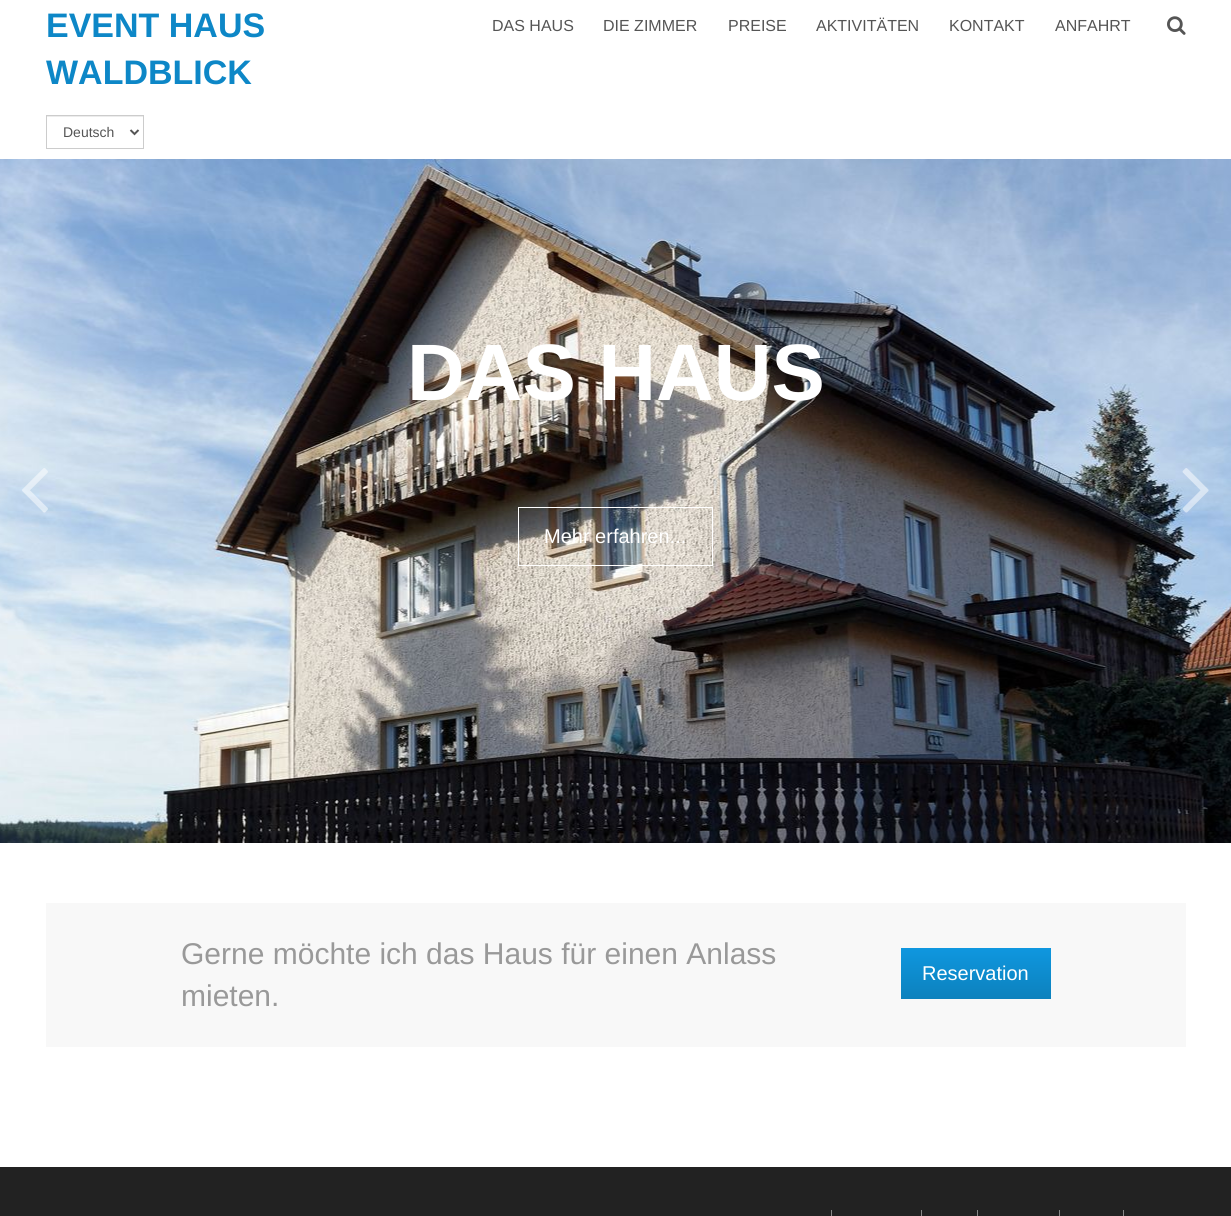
import math
import cairo

surface = cairo.ImageSurface(cairo.Format.RGB24, 1231, 1216)
ctx = cairo.Context(surface)
options = cairo.FontOptions()
options.set_hint_metrics(cairo.HintMetrics.OFF)
options.set_hint_style(cairo.HintStyle.NONE)
ctx.set_font_options(options)
ctx.set_miter_limit(4)


def ink(r, g, b):
    ctx.set_source_rgb(r / 255, g / 255, b / 255)


def write(x, y, s, family, size, color, bold=False, italic=False):
    ctx.select_font_face(family, cairo.FontSlant.ITALIC if italic else cairo.FontSlant.NORMAL, cairo.FontWeight.BOLD if bold else cairo.FontWeight.NORMAL)
    ctx.set_font_size(size)
    ink(*color)
    ctx.move_to(x, y)
    ctx.show_text(s)


def block(x, y, w, h, *color):
    ink(*color)
    ctx.rectangle(x, y, w, h)
    ctx.fill()


def paste(path, x, y, w, h):
    ctx.save()
    ctx.set_source_surface(cairo.ImageSurface.create_from_png(path), x, y)
    ctx.rectangle(x, y, w, h)
    ctx.fill()
    ctx.restore()


s1 = dict(family="Liberation Sans", size=34, color=(13, 135, 199), bold=True)
s2 = dict(family="Liberation Sans", size=14, color=(85, 85, 85))
s3 = dict(family="Liberation Sans", size=16, color=(85, 85, 85))
s4 = dict(family="Liberation Sans", size=80, color=(255, 255, 255), bold=True)
s5 = dict(family="Liberation Sans", size=20, color=(255, 255, 255))
s6 = dict(family="Liberation Sans", size=30, color=(153, 153, 153))

ink(255, 255, 255)
ctx.paint()
write(46, 37, "EVENT HAUS", **s1)
write(46, 84, "WALDBLICK", **s1)
block(47, 116, 96, 1, 236, 236, 236)
ctx.rectangle(46.5, 115.5, 97, 33)
ink(204, 204, 204)
ctx.set_line_width(1)
ctx.stroke()
ctx.new_path()
ctx.move_to(130.5, 130)
ctx.line_to(134.5, 134)
ctx.line_to(138.5, 130)
ink(85, 85, 85)
ctx.set_line_width(2)
ctx.stroke()
write(63, 137, "Deutsch", **s2)
write(492, 31, "DAS HAUS", **s3)
write(603, 31, "DIE ZIMMER", **s3)
write(728, 31, "PREISE", **s3)
write(816, 31, "AKTIVITÄTEN", **s3)
write(949, 31, "KONTAKT", **s3)
write(1055, 31, "ANFAHRT", **s3)
paste("pic1.png", 1167, 16, 19, 19)
paste("pic3.png", 0, 159, 1231, 684)
paste("pic2.png", 22, 468, 26, 45)
write(407, 400, "DAS HAUS", **s4)
ctx.rectangle(518.5, 507.5, 194, 58)
ctx.set_line_width(1)
ctx.stroke()
write(544, 543, "Mehr erfahren...", **s5)
paste("pic4.png", 1182, 468, 27, 45)
block(46, 903, 1140, 144, 248, 248, 248)
write(181, 964, "Gerne möchte ich das Haus für einen Anlass", **s6)
write(181, 1006, "mieten.", **s6)
gradient = cairo.LinearGradient(976, 948, 976, 999)
gradient.add_color_stop_rgba(0, 0.059, 0.592, 0.875, 1)
gradient.add_color_stop_rgba(1, 0.047, 0.506, 0.741, 1)
ctx.set_source(gradient)
ctx.rectangle(901, 948, 150, 51)
ctx.fill()
write(922, 980, "Reservation", **s5)
block(0, 1167, 1231, 49, 34, 34, 34)
block(831, 1210, 1, 6, 136, 136, 136)
block(921, 1210, 1, 6, 136, 136, 136)
block(977, 1210, 1, 6, 136, 136, 136)
block(1059, 1210, 1, 6, 136, 136, 136)
block(1123, 1210, 1, 6, 136, 136, 136)
surface.write_to_png("screenshot.png")
